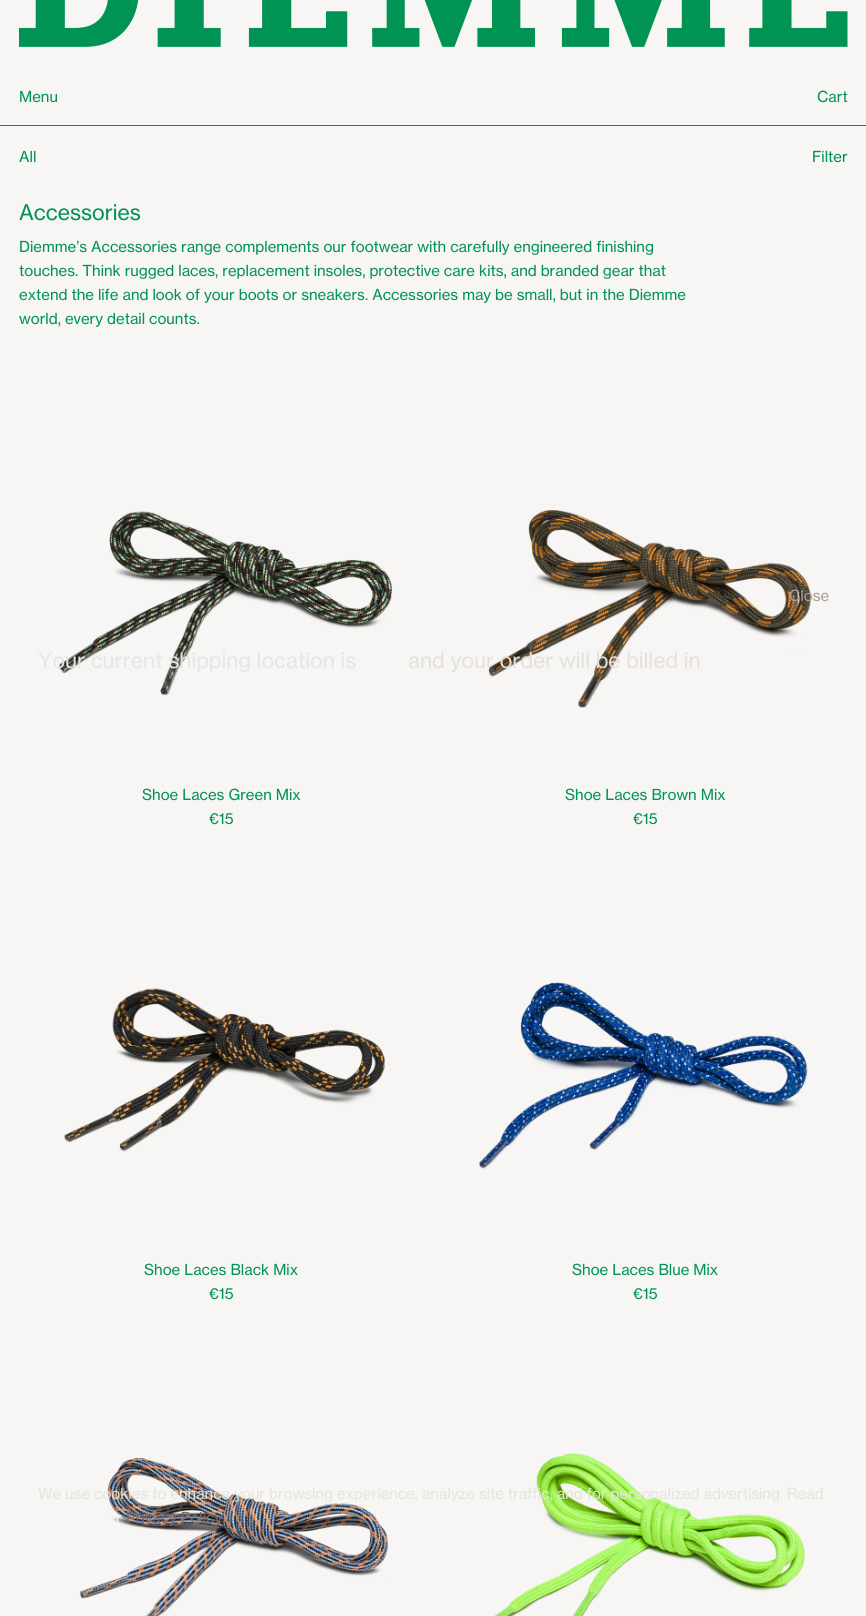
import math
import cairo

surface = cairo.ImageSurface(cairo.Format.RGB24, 866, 1616)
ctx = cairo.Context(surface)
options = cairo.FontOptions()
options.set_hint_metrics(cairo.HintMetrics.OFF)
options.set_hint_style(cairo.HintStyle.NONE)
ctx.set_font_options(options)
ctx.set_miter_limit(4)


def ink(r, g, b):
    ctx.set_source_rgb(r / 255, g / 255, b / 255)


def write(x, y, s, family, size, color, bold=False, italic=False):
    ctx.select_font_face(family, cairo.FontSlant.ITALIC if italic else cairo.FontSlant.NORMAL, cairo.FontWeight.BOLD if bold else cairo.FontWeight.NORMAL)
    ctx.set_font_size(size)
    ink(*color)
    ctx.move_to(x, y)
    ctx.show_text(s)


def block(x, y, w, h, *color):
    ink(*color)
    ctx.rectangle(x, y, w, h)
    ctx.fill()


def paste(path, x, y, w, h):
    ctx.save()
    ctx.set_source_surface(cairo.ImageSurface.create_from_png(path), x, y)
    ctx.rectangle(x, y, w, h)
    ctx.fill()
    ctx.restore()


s1 = dict(family="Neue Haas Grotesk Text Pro", size=15, color=(0, 147, 83))
s2 = dict(family="Neue Haas Grotesk Text Pro", size=21.25, color=(0, 147, 83))
s3 = dict(family="Neue Haas Grotesk Text Pro", size=15, color=(167, 159, 147))
s4 = dict(family="Neue Haas Grotesk Text Pro", size=21.25, color=(230, 229, 227))
s5 = dict(family="Neue Haas Grotesk Text Pro", size=21.25, color=(228, 225, 221))
s6 = dict(family="Neue Haas Grotesk Text Pro", size=15, color=(226, 231, 216))
s7 = dict(family="Neue Haas Grotesk Text Pro", size=15, color=(244, 243, 241))
s8 = dict(family="Neue Haas Grotesk Text Pro", size=15, color=(116, 108, 112))

ink(247, 246, 244)
ctx.paint()
paste("pic1.png", 19, 0, 829, 47)
write(19, 102, "Menu", **s1)
write(817, 102, "Cart", **s1)
block(0, 125, 866, 1, 0, 147, 83)
write(19, 162, "All", **s1)
write(812, 162, "Filter", **s1)
write(19, 220, "Accessories", **s2)
write(19, 252, "Diemme’s Accessories range complements our footwear with carefully engineered finishing", **s1)
write(19, 276, "touches. Think rugged laces, replacement insoles, protective care kits, and branded gear that", **s1)
write(19, 300, "extend the life and look of your boots or sneakers. Accessories may be small, but in the Diemme", **s1)
write(19, 324, "world, every detail counts.", **s1)
paste("pic2.png", 58, 511, 335, 185)
write(142, 800, "Shoe Laces Green Mix", **s1)
write(209, 824, "€15", **s1)
paste("pic3.png", 488, 510, 324, 198)
write(565, 800, "Shoe Laces Brown Mix", **s1)
write(633, 824, "€15", **s1)
paste("pic4.png", 64, 988, 321, 164)
write(144, 1275, "Shoe Laces Black Mix", **s1)
write(209, 1299, "€15", **s1)
paste("pic5.png", 479, 982, 329, 187)
write(572, 1275, "Shoe Laces Blue Mix", **s1)
write(633, 1299, "€15", **s1)
paste("pic6.png", 79, 1458, 310, 158)
paste("pic7.png", 494, 1452, 311, 164)
write(789, 601, "Close", **s3)
write(38, 668, "Your current shipping location is", **s4)
write(408, 668, "and your order will be billed in", **s5)
write(38, 1499, "We use cookies to enhance your browsing experience, analyze site traffic, and for personalized advertising. Read", **s6)
write(116, 1523, "r", **s7)
write(126, 1523, "Privacy Policy.", **s8)
surface.write_to_png("screenshot.png")
